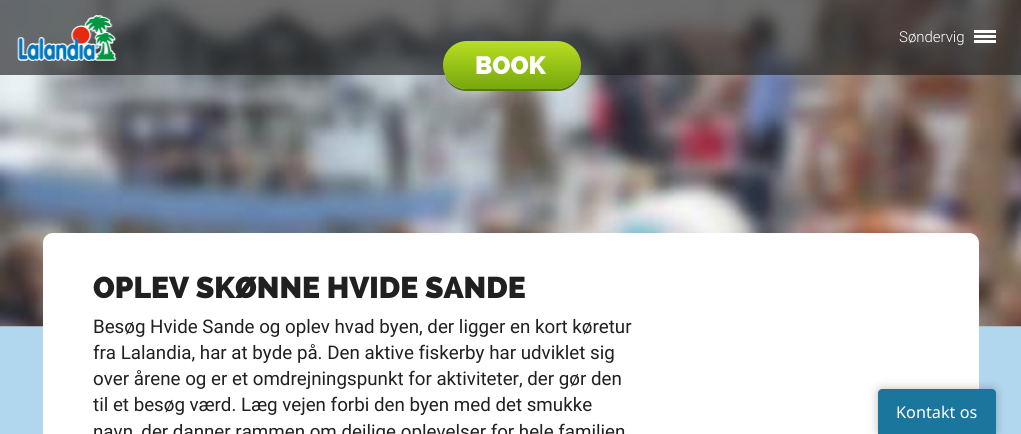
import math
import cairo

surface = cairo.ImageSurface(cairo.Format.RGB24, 1021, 434)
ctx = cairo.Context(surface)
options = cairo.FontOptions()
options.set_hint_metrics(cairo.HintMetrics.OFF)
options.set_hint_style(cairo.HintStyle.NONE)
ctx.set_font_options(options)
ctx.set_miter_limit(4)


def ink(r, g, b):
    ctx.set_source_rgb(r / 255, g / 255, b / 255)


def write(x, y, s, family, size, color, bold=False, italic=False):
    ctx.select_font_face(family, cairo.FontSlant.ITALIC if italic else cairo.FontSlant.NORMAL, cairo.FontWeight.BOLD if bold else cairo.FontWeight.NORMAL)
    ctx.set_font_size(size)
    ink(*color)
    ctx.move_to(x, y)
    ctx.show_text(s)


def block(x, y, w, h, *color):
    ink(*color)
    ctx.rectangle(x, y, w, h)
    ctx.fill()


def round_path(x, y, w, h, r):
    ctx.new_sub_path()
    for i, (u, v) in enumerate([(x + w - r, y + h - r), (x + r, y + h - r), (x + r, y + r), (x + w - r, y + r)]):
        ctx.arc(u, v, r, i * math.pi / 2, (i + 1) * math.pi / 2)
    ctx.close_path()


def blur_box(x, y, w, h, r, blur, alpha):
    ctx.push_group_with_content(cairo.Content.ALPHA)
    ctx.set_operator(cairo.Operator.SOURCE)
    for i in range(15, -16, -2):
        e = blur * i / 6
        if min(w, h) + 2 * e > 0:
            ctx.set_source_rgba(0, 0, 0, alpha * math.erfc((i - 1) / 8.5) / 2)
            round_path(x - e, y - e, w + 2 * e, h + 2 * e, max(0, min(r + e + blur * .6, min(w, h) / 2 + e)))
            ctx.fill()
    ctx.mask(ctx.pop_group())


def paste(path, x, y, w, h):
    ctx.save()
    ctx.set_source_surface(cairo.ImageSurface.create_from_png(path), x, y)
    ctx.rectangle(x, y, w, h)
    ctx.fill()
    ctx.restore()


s1 = dict(family="Roboto Light", size=15, color=(255, 255, 255))
s2 = dict(family="Raleway Black", size=25, color=(255, 255, 255))
s3 = dict(family="Raleway Black", size=30, color=(32, 32, 32))
s4 = dict(family="Roboto", size=18.75, color=(32, 32, 32))
s5 = dict(family="Noto Sans", size=16.25, color=(255, 255, 255))

ink(177, 215, 238)
ctx.paint()
paste("pic2.png", 0, 0, 1021, 327)
ctx.set_source_rgba(0.125, 0.125, 0.125, 0.65)
ctx.rectangle(0, 0, 1021, 75)
ctx.fill()
paste("pic1.png", 17, 15, 100, 46)
write(899, 42, "Søndervig", **s1)
block(974, 30, 22, 3, 255, 255, 255)
block(974, 35, 22, 3, 255, 255, 255)
block(974, 40, 22, 3, 255, 255, 255)
ink(84, 119, 9)
ctx.new_path()
ctx.move_to(445, 76)
ctx.curve_to(448, 85, 457, 91, 466, 91)
ctx.line_to(558, 91)
ctx.curve_to(570, 91, 581, 80, 581, 68)
ctx.line_to(581, 63)
ctx.line_to(581, 65)
ctx.curve_to(581, 78, 570, 89, 557, 89)
ctx.line_to(466, 89)
ctx.curve_to(457, 89, 449, 84, 445, 76)
ctx.close_path()
ctx.fill()
gradient = cairo.LinearGradient(511, 41, 511, 89)
gradient.add_color_stop_rgba(0, 0.725, 0.875, 0.137, 1)
gradient.add_color_stop_rgba(1, 0.463, 0.655, 0.047, 1)
ctx.set_source(gradient)
round_path(443, 41, 138, 48, 24)
ctx.fill()
write(475, 74, "BOOK", **s2)
round_path(43, 233, 936, 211, 10)
ctx.fill()
write(93, 298, "OPLEV SKØNNE HVIDE SANDE", **s3)
write(93, 333, "Besøg Hvide Sande og oplev hvad byen, der ligger en kort køretur", **s4)
write(93, 359, "fra Lalandia, har at byde på. Den aktive fiskerby har udviklet sig", **s4)
write(93, 385, "over årene og er et omdrejningspunkt for aktiviteter, der gør den", **s4)
write(93, 411, "til et besøg værd. Læg vejen forbi den byen med det smukke", **s4)
write(93, 438, "navn, der danner rammen om dejlige oplevelser for hele familien", **s4)
ink(0, 0, 0)
blur_box(878, 389, 118, 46, 4, 5, 0.25)
ink(26, 118, 156)
ctx.new_path()
ctx.move_to(882, 389)
ctx.line_to(992, 389)
ctx.curve_to(994, 389, 996, 391, 996, 393)
ctx.line_to(996, 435)
ctx.line_to(878, 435)
ctx.line_to(878, 393)
ctx.curve_to(878, 391, 880, 389, 882, 389)
ctx.close_path()
ctx.fill()
write(896, 418, "Kontakt os", **s5)
surface.write_to_png("screenshot.png")
